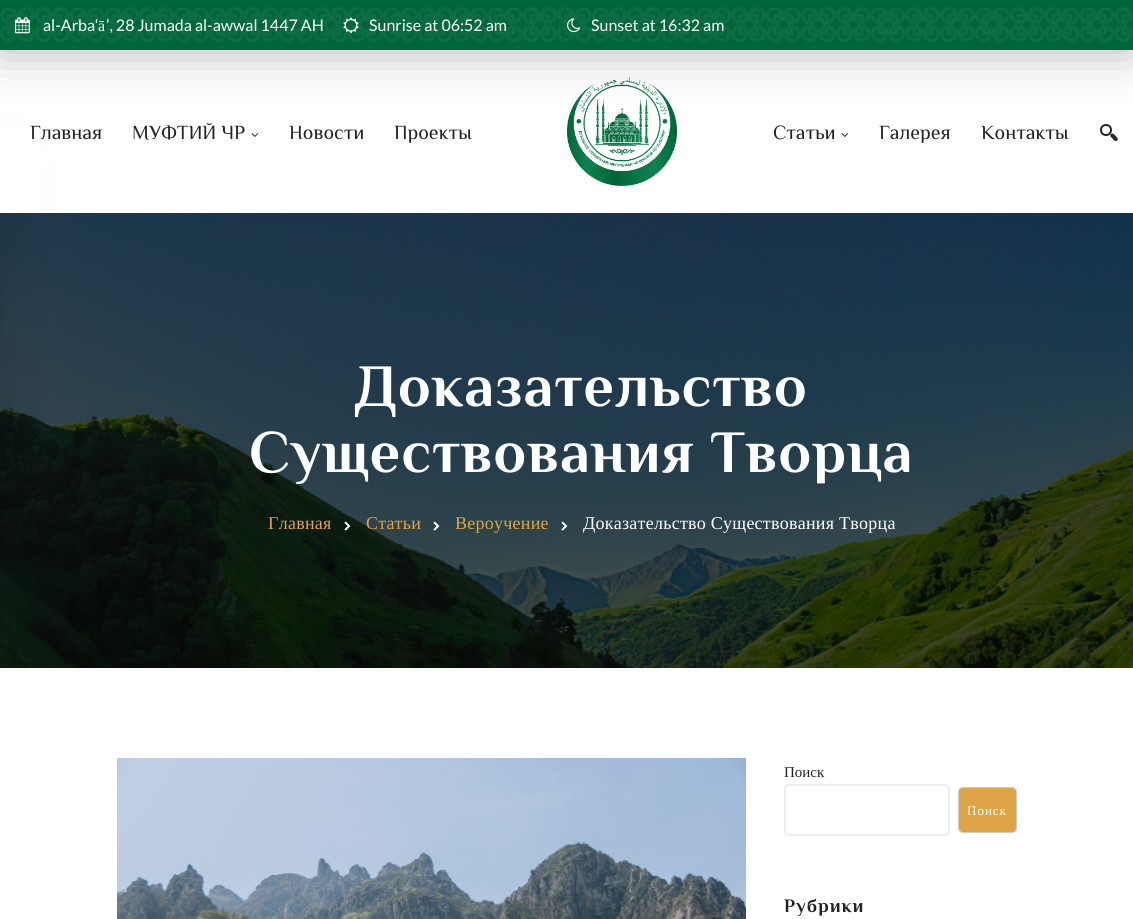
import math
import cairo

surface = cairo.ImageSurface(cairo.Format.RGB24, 1133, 919)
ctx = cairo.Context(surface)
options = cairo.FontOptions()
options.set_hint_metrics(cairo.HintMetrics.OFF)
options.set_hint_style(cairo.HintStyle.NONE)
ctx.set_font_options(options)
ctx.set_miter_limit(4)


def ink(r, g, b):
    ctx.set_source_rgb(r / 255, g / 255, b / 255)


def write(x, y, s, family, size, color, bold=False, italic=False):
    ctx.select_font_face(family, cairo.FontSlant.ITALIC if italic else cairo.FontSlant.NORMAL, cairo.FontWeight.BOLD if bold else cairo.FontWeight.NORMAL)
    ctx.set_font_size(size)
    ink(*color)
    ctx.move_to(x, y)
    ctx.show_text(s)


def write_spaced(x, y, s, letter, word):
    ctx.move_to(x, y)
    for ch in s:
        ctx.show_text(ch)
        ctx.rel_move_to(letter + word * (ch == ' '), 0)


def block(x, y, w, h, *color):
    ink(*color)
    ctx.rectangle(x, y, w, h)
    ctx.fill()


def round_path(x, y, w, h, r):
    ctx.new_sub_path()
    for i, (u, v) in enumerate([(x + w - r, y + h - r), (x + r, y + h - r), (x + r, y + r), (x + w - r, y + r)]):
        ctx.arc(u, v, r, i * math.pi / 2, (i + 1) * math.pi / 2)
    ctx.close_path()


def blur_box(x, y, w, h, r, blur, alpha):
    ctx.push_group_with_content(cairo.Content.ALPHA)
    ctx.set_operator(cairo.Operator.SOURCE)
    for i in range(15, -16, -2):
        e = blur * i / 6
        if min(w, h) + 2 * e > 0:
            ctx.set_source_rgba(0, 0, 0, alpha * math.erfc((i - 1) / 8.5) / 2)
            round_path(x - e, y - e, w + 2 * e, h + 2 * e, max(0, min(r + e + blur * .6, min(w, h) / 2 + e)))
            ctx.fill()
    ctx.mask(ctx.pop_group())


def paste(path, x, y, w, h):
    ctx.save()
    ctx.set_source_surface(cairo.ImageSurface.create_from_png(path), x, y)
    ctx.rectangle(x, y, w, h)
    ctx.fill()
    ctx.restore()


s1 = dict(family="Lato", size=16, color=(255, 255, 255))
s2 = dict(family="Liberation Serif", size=16, color=(255, 255, 255))
s3 = dict(family="Philosopher", size=20, color=(34, 34, 34))
s4 = dict(family="Liberation Serif", size=15, color=(34, 34, 34))

ink(255, 255, 255)
ctx.paint()
paste("pic7.png", 0, 213, 1133, 455)
ink(0, 0, 0)
blur_box(-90, 160, 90, 363, 0, 30, 0.15)
block(0, 127, 44, 86, 255, 255, 255)
paste("pic6.png", 567, 77, 110, 109)
ctx.arc(1106, 130, 5, 0, 2 * math.pi)
ink(37, 36, 34)
ctx.stroke()
ink(0, 0, 0)
blur_box(0, 0, 1133, 50, 0, 25, 0.3)
block(0, 0, 1133, 50, 0, 101, 56)
paste("pic1.png", 0, 7, 1133, 35)
paste("pic2.png", 15, 17, 15, 17)
write(43, 31, "al-Arba‘", **s1)
write(98, 31, "ā", **s2)
write(106, 31, "’, 28 Jumada al-awwal 1447 AH", **s1)
paste("pic3.png", 343, 17, 16, 17)
write(369, 31, "Sunrise at 06:52 am", **s1)
paste("pic4.png", 567, 18, 14, 15)
write(591, 31, "Sunset at 16:32 am", **s1)
write(30, 139, "Главная", **s3)
write(132, 139, "МУФТИЙ ЧР", **s3)
paste("pic5.png", 251, 133, 8, 4)
write(289, 139, "Новости", **s3)
write(394, 139, "Проекты", **s3)
write(773, 139, "Статьи", **s3)
paste("pic5.png", 841, 133, 8, 4)
write(879, 139, "Галерея", **s3)
write(981, 139, "Контакты", **s3)
ink(37, 36, 34)
ctx.new_path()
ctx.move_to(1111, 134)
ctx.curve_to(1112.5, 132.5, 1114.5, 134.5, 1115.5, 136)
ctx.curve_to(1116.5, 137, 1119, 138.5, 1117, 140.5)
ctx.curve_to(1115.5, 142, 1113.5, 140, 1112.5, 138.5)
ctx.curve_to(1111.5, 137.5, 1109, 135.5, 1111, 134)
ctx.close_path()
ctx.fill()
ctx.select_font_face("Philosopher", cairo.FontSlant.NORMAL, cairo.FontWeight.BOLD)
ctx.set_font_size(60)
ink(255, 255, 255)
write_spaced(355, 406, "Доказательство", 1, 0)
write_spaced(249, 472, "Существования Творца", 1, 0)
ctx.select_font_face("Liberation Serif")
ctx.set_font_size(18)
ink(222, 164, 70)
write_spaced(268, 529, "Главная", 0.25, 0)
paste("pic8.png", 344, 521, 7, 10)
write_spaced(366, 529, "Статьи", 0.25, 0)
paste("pic9.png", 433, 521, 7, 10)
write_spaced(455, 529, "Вероучение", 0.25, 0)
paste("pic10.png", 561, 521, 7, 10)
ink(255, 255, 255)
write_spaced(583, 529, "Доказательство Существования Творца", 0.25, 0)
paste("pic11.png", 117, 758, 629, 161)
write(784, 777, "Поиск", **s4)
round_path(785, 785, 164, 50, 4)
ink(238, 238, 238)
ctx.stroke()
ink(222, 164, 70)
round_path(958.5, 787.5, 58, 45, 4.5)
ctx.fill_preserve()
ink(204, 204, 204)
ctx.set_line_width(1)
ctx.stroke()
ctx.set_font_size(13)
ink(255, 255, 255)
write_spaced(967, 815, "Поиск", 1, 0)
ctx.select_font_face("Philosopher", cairo.FontSlant.NORMAL, cairo.FontWeight.BOLD)
ctx.set_font_size(19)
ink(34, 34, 34)
write_spaced(784, 912, "Рубрики", 1, 0)
surface.write_to_png("screenshot.png")
